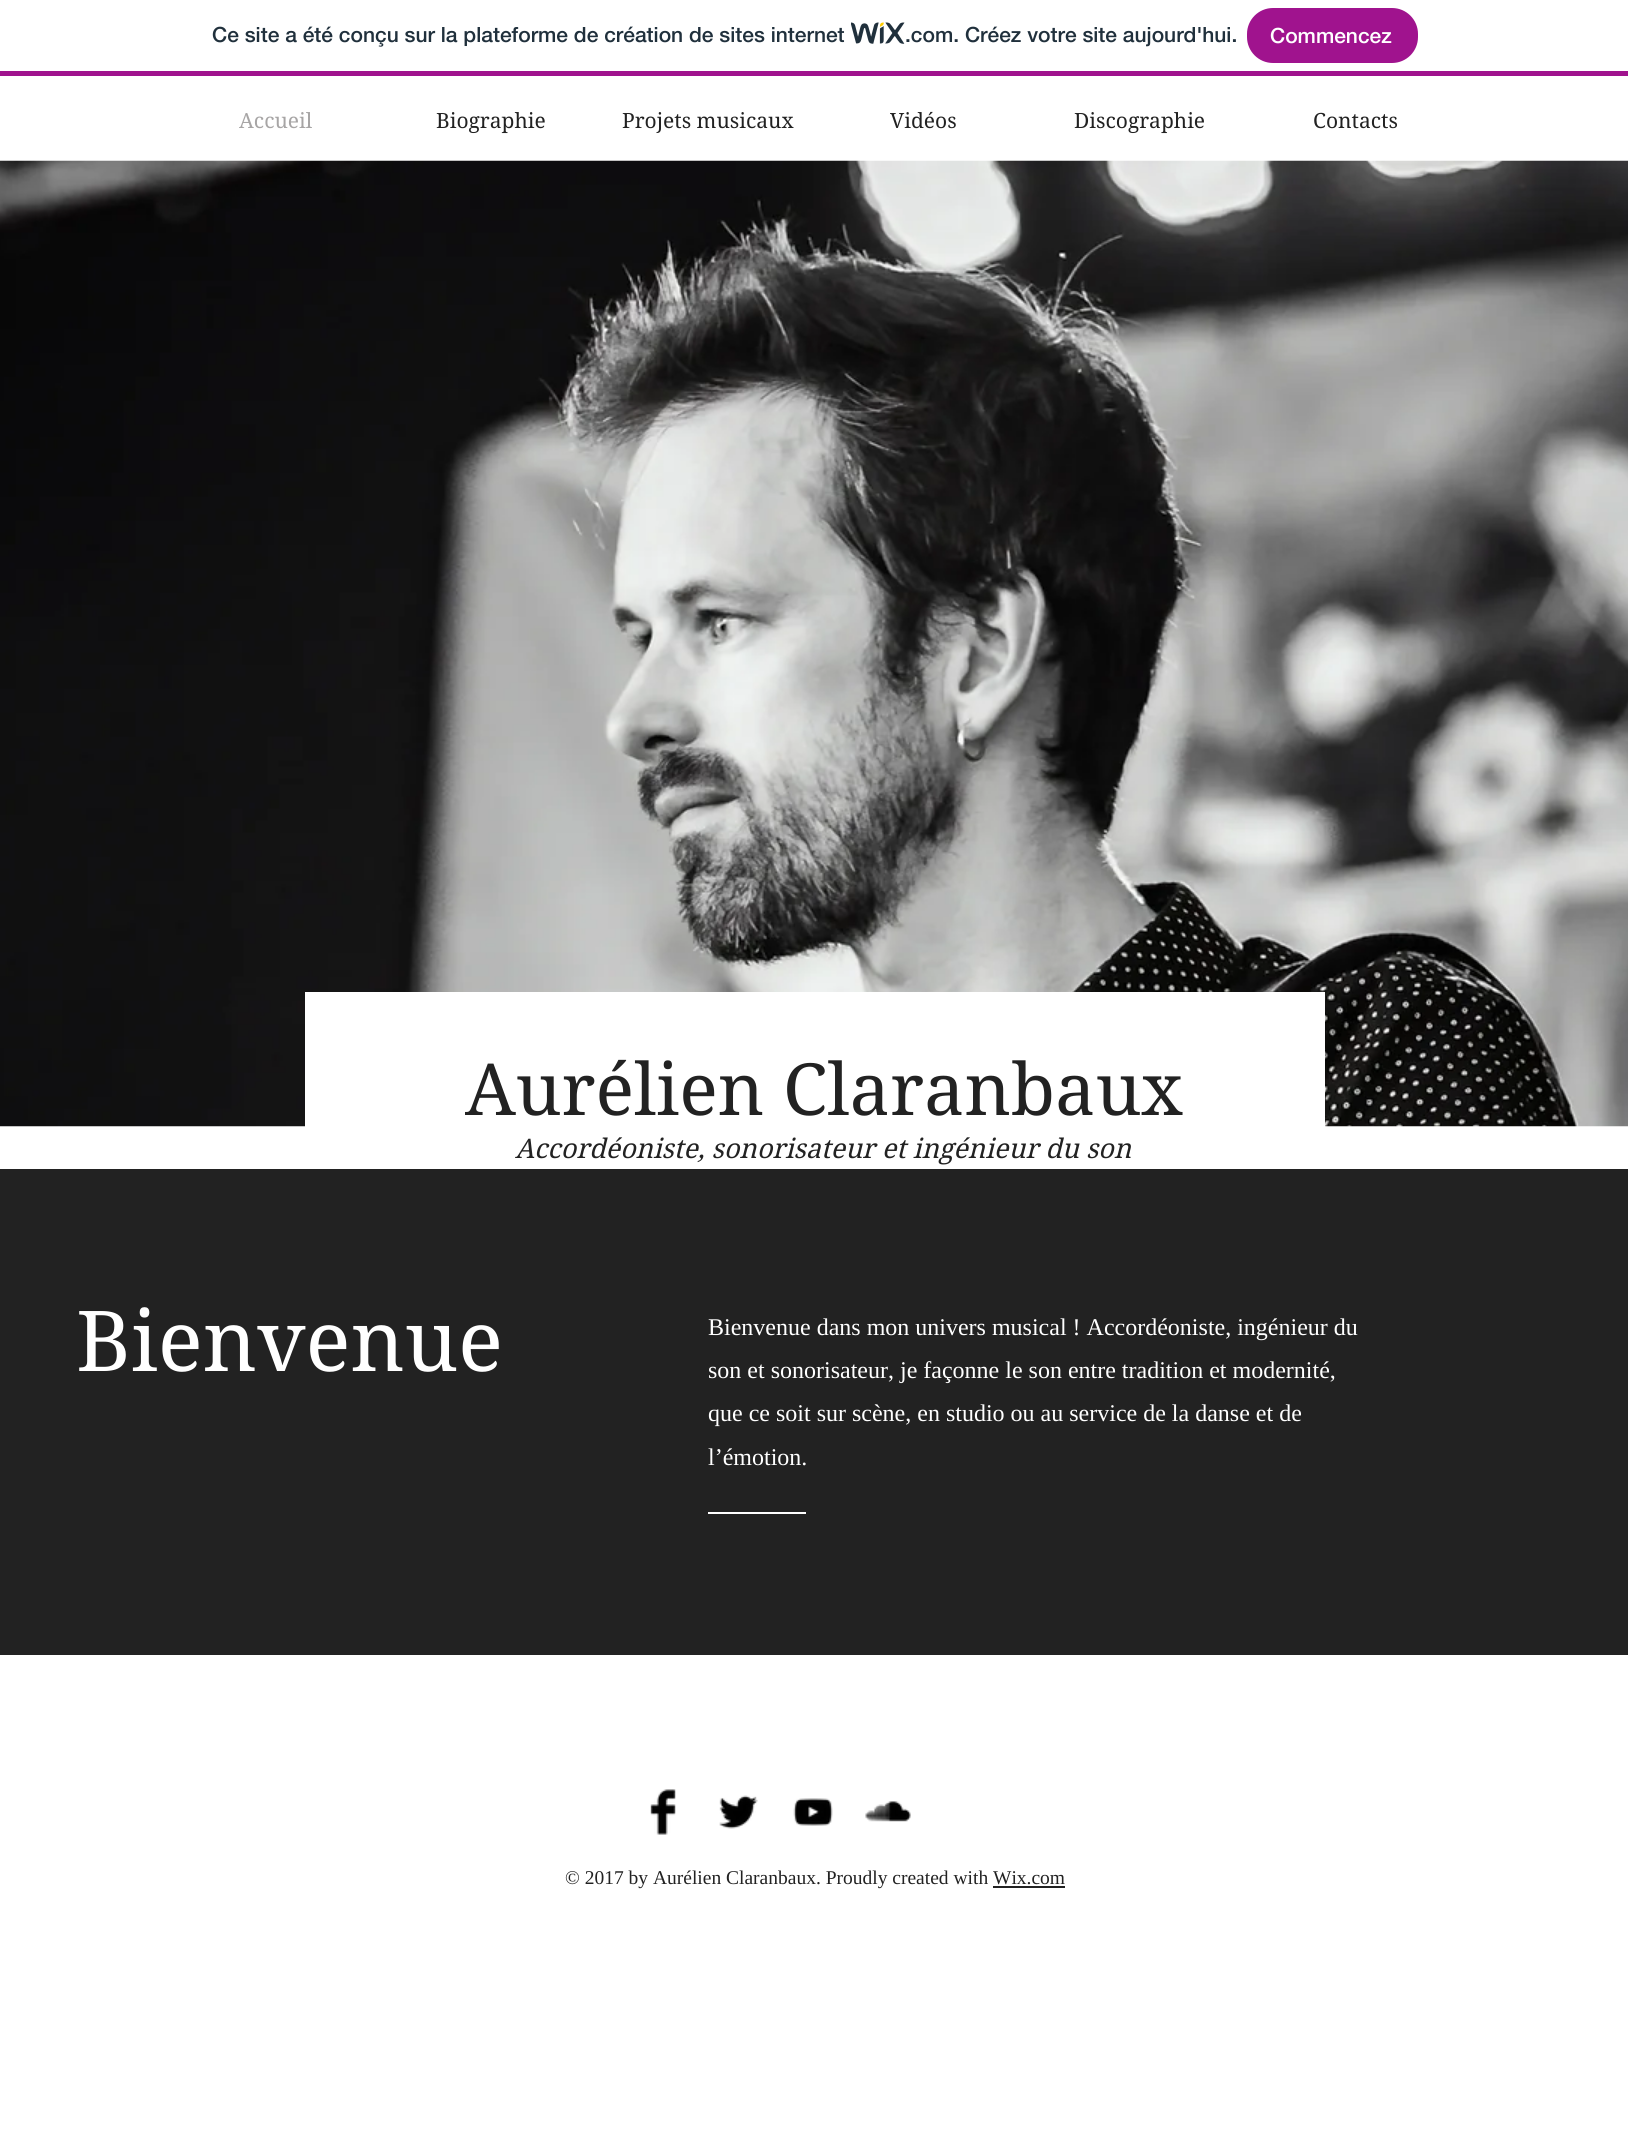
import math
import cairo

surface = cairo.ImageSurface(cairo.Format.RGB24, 1628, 2134)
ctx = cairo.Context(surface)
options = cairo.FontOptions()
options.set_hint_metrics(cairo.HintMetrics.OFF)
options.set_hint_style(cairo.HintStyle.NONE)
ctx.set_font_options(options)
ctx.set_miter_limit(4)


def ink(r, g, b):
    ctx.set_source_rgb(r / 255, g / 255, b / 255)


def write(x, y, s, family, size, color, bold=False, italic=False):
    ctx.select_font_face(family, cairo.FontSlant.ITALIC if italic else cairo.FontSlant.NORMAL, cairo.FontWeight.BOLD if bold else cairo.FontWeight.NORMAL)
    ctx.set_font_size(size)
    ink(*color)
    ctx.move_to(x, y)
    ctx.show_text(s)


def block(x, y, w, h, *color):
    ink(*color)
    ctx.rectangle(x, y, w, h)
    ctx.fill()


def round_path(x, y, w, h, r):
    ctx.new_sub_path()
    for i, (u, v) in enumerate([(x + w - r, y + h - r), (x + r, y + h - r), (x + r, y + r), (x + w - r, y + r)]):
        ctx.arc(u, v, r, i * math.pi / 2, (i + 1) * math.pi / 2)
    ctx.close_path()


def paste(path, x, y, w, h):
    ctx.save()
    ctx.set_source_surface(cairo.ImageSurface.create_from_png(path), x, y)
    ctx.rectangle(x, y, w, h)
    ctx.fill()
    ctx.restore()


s1 = dict(family="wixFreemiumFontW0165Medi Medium", size=21, color=(32, 48, 60))
s2 = dict(family="wixFreemiumFontW0165Medi Medium", size=21, color=(255, 255, 255))
s3 = dict(family="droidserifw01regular", size=21, color=(167, 165, 165))
s4 = dict(family="droidserifw01regular", size=21, color=(34, 34, 34))
s5 = dict(family="droidserifw01regular", size=72, color=(34, 34, 34))
s6 = dict(family="droidserifw01regular", size=27, color=(34, 34, 34), italic=True)
s7 = dict(family="droidserifw01regular", size=84, color=(255, 255, 255))
s8 = dict(family="Liberation Serif", size=24, color=(255, 255, 255))
s9 = dict(family="Liberation Serif", size=19.5, color=(34, 34, 34))

ink(255, 255, 255)
ctx.paint()
block(0, 71, 1628, 5, 160, 19, 142)
write(212, 42, "Ce site a été conçu sur la plateforme de création de sites internet", **s1)
paste("pic1.png", 851, 22, 54, 22)
write(905, 42, ".com. Créez votre site aujourd'hui.", **s1)
ink(160, 19, 142)
round_path(1248, 9, 169, 53, 25)
ctx.fill_preserve()
ctx.stroke()
write(1270, 43, "Commencez", **s2)
write(239, 128, "Accueil", **s3)
write(436, 128, "Biographie", **s4)
write(622, 128, "Projets musicaux", **s4)
write(890, 128, "Vidéos", **s4)
write(1074, 128, "Discographie", **s4)
write(1313, 128, "Contacts", **s4)
paste("pic2.png", 0, 160, 1628, 967)
block(305, 992, 1020, 135, 255, 255, 255)
write(465, 1115, "Aurélien Claranbaux", **s5)
write(515, 1158, "Accordéoniste, sonorisateur et ingénieur du son", **s6)
block(0, 1169, 1628, 486, 34, 34, 34)
write(76, 1371, "Bienvenue", **s7)
write(708, 1335, "Bienvenue dans mon univers musical ! Accordéoniste, ingénieur du", **s8)
write(708, 1378, "son et sonorisateur, je façonne le son entre tradition et modernité,", **s8)
write(708, 1421, "que ce soit sur scène, en studio ou au service de la danse et de", **s8)
write(708, 1465, "l’émotion.", **s8)
block(708, 1512, 98, 2, 255, 255, 255)
paste("pic3.png", 650, 1789, 26, 46)
paste("pic4.png", 719, 1795, 39, 34)
paste("pic5.png", 793, 1798, 40, 28)
paste("pic6.png", 865, 1801, 46, 21)
write(565, 1884, "© 2017 by Aurélien Claranbaux. Proudly created with Wix.com", **s9)
block(993, 1886, 72, 2, 34, 34, 34)
surface.write_to_png("screenshot.png")
